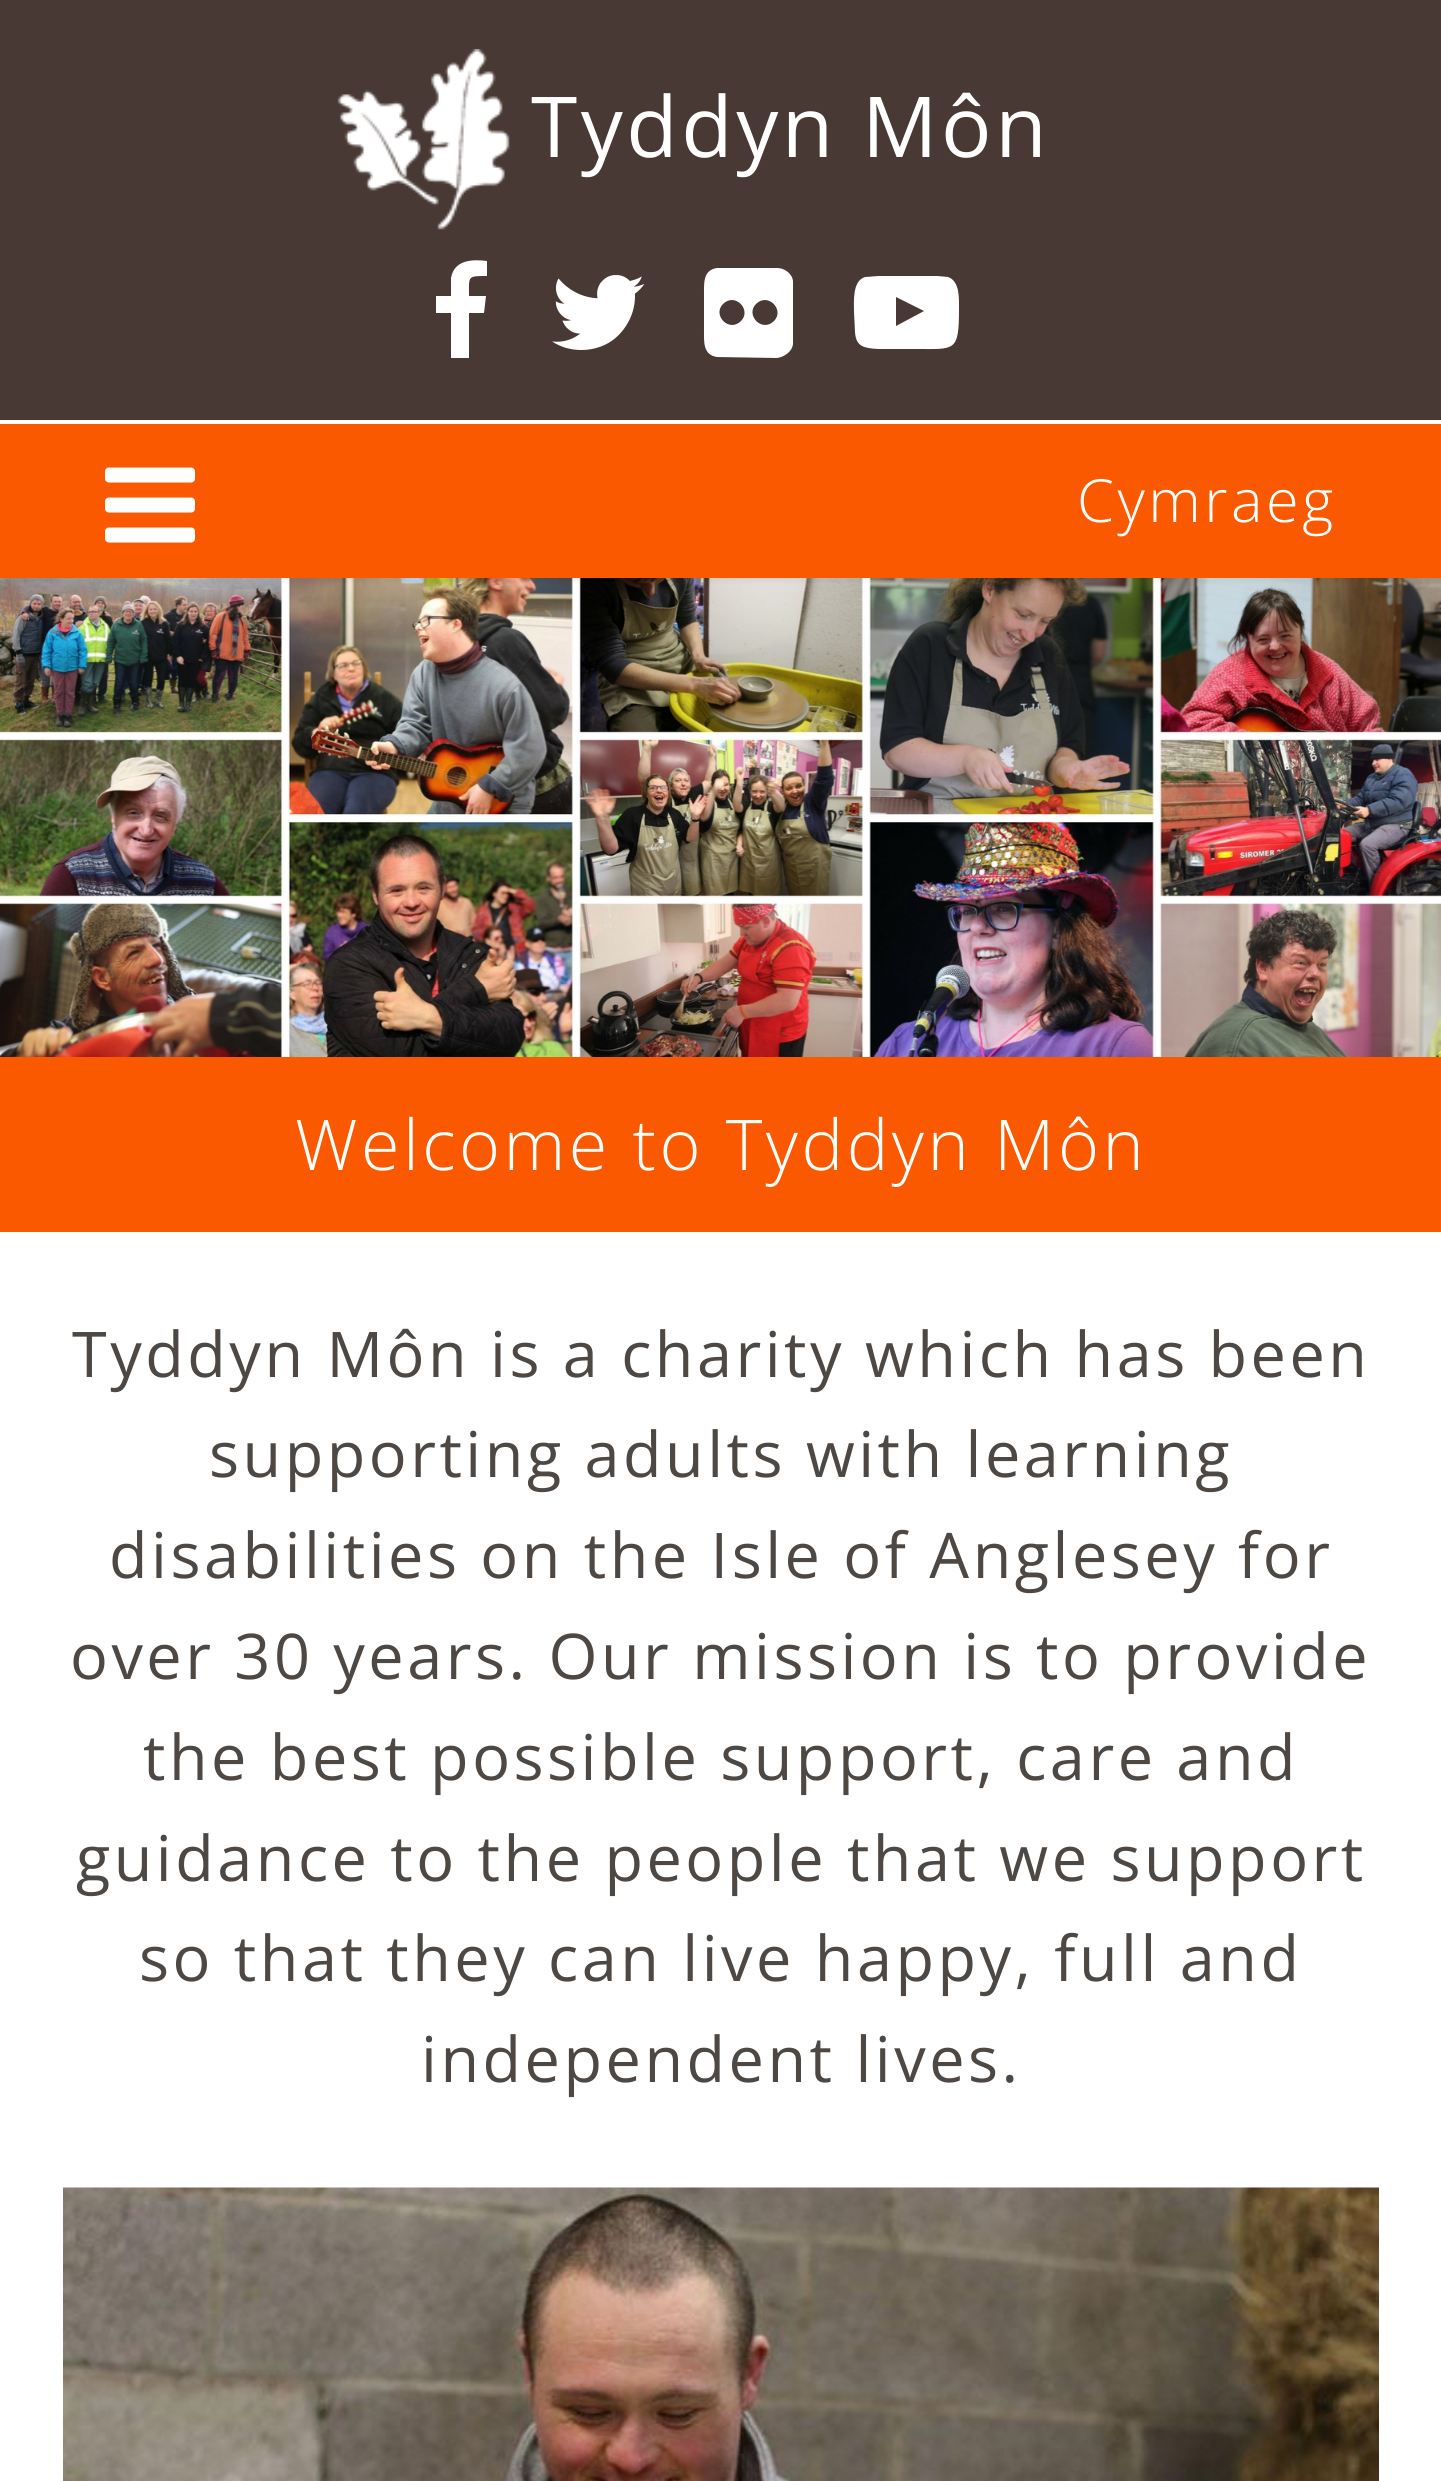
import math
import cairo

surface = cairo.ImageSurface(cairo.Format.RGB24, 1441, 2481)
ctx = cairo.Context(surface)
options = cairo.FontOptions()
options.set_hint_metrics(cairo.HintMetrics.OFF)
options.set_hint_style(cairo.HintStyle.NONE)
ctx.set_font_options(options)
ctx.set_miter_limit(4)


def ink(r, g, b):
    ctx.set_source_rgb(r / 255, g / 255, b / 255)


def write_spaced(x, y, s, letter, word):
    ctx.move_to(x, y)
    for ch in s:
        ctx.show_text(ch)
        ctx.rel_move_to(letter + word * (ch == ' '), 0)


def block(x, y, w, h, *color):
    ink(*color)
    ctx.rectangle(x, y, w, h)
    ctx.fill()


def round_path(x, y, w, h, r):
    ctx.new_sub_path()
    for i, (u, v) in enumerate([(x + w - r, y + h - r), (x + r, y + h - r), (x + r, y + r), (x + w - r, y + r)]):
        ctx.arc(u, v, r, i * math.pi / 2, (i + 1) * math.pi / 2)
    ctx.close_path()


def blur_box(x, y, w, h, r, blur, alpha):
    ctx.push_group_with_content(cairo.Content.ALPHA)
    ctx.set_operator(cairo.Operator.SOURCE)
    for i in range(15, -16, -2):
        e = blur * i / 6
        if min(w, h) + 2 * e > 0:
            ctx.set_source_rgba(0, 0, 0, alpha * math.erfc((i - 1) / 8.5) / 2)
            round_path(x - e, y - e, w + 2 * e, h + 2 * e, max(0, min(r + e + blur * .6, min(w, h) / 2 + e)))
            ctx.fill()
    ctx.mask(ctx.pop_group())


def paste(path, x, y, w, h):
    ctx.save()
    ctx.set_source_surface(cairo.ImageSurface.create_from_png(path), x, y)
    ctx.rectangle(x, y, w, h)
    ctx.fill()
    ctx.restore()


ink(255, 255, 255)
ctx.paint()
block(0, 0, 1441, 420, 72, 57, 52)
paste("pic1.png", 337, 49, 173, 181)
ctx.select_font_face("Open Sans")
ctx.set_font_size(84)
ink(255, 255, 255)
write_spaced(531, 157, "Tyddyn Môn", 3.5, 0)
ctx.new_path()
ctx.move_to(487, 261)
ctx.line_to(487, 276)
ctx.curve_to(467, 276, 469, 276, 469, 296)
ctx.line_to(486, 296)
ctx.line_to(484, 313)
ctx.line_to(469, 313)
ctx.line_to(469, 358)
ctx.line_to(451, 358)
ctx.line_to(451, 313)
ctx.line_to(436, 313)
ctx.line_to(436, 296)
ctx.line_to(451, 296)
ctx.line_to(451, 278)
ctx.curve_to(454, 260, 472, 259, 487, 261)
ctx.close_path()
ctx.fill()
paste("pic2.png", 552, 275, 93, 75)
ctx.new_path()
ctx.move_to(777, 268)
ctx.curve_to(784, 268, 792, 273, 793, 281)
ctx.line_to(793, 344)
ctx.curve_to(792, 352, 784, 357, 777, 358)
ctx.line_to(717, 357)
ctx.curve_to(703, 355, 704, 342, 704, 331)
ctx.line_to(704, 294)
ctx.curve_to(704, 283, 703, 270, 717, 268)
ctx.close_path()
ctx.move_to(741, 321)
ctx.curve_to(752, 310, 735, 292, 723, 304)
ctx.curve_to(712, 315, 729, 333, 741, 321)
ctx.close_path()
ctx.move_to(774, 321)
ctx.curve_to(785, 310, 768, 292, 756, 304)
ctx.curve_to(745, 315, 762, 333, 774, 321)
ctx.close_path()
ctx.fill()
ctx.new_path()
ctx.move_to(896, 326)
ctx.line_to(924, 311)
ctx.line_to(896, 297)
ctx.close_path()
ctx.move_to(906, 276)
ctx.line_to(937, 276)
ctx.line_to(948, 277)
ctx.curve_to(960, 281, 959, 299, 959, 309)
ctx.curve_to(959, 352, 955, 349, 917, 349)
ctx.line_to(878, 349)
ctx.curve_to(864, 348, 856, 347, 855, 332)
ctx.line_to(854, 312)
ctx.curve_to(854, 302, 852, 281, 865, 277)
ctx.line_to(878, 276)
ctx.close_path()
ctx.fill()
paste("pic4.png", 0, 578, 1441, 479)
ink(0, 0, 0)
blur_box(0, 427, 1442, 154, 0, 2, 0.05)
block(0, 424, 1441, 154, 250, 89, 0)
paste("pic3.png", 105, 467, 90, 76)
ctx.select_font_face("Open Sans Light")
ctx.set_font_size(59.5)
ink(255, 255, 255)
write_spaced(1077, 522, "Cymraeg", 3.5, 0)
block(0, 1057, 1441, 175, 250, 89, 0)
ctx.set_font_size(70)
ink(255, 255, 255)
write_spaced(295, 1170, "Welcome to Tyddyn Môn", 3.5, 0)
ctx.select_font_face("Open Sans")
ctx.set_font_size(63)
ink(77, 72, 67)
write_spaced(72, 1377, "Tyddyn Môn is a charity which has been", 3.5, 0)
write_spaced(209, 1477, "supporting adults with learning", 3.5, 0)
write_spaced(109, 1578, "disabilities on the Isle of Anglesey for", 3.5, 0)
write_spaced(70, 1679, "over 30 years. Our mission is to provide", 3.5, 0)
write_spaced(143, 1780, "the best possible support, care and", 3.5, 0)
write_spaced(76, 1881, "guidance to the people that we support", 3.5, 0)
write_spaced(139, 1981, "so that they can live happy, full and", 3.5, 0)
write_spaced(421, 2082, "independent lives.", 3.5, 0)
paste("pic5.png", 63, 2187, 1316, 294)
surface.write_to_png("screenshot.png")
